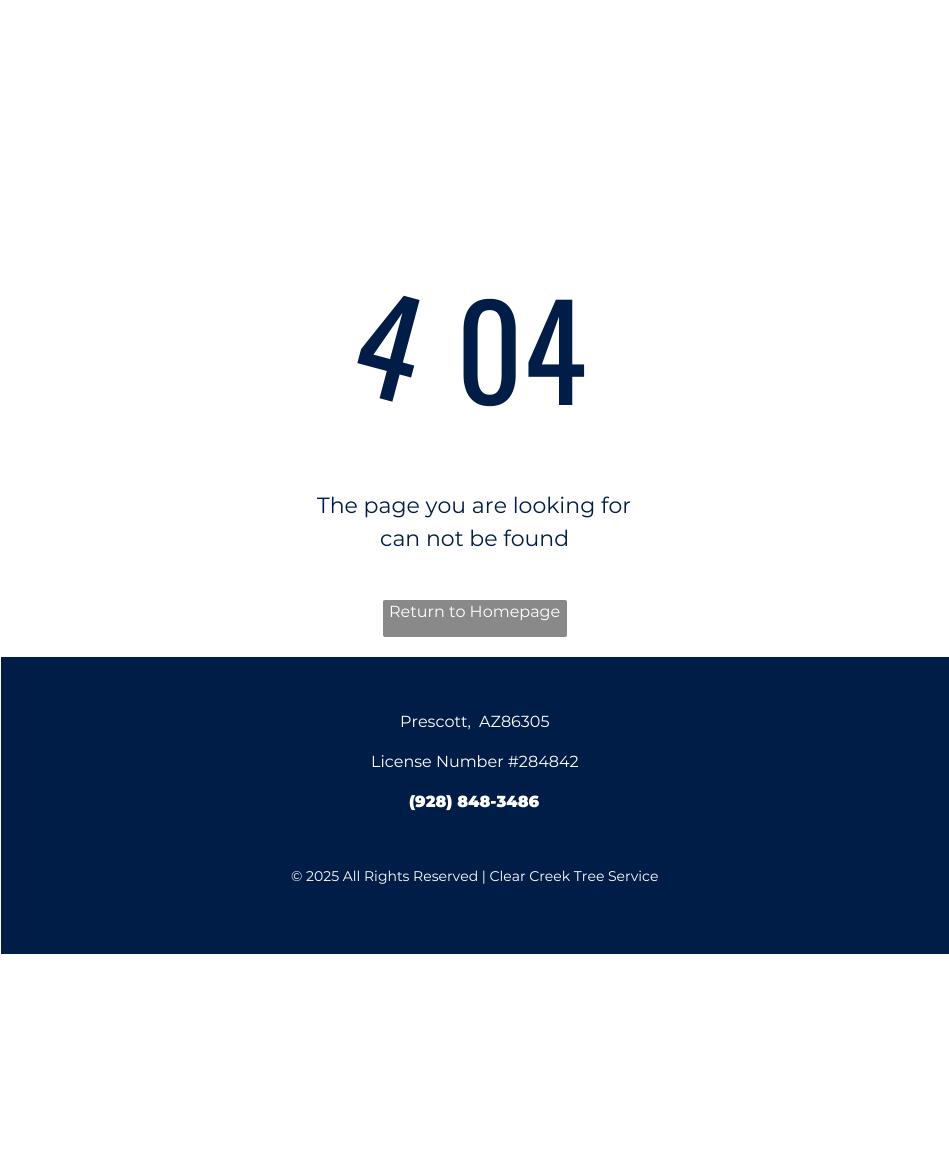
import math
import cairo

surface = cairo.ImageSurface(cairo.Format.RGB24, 949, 1163)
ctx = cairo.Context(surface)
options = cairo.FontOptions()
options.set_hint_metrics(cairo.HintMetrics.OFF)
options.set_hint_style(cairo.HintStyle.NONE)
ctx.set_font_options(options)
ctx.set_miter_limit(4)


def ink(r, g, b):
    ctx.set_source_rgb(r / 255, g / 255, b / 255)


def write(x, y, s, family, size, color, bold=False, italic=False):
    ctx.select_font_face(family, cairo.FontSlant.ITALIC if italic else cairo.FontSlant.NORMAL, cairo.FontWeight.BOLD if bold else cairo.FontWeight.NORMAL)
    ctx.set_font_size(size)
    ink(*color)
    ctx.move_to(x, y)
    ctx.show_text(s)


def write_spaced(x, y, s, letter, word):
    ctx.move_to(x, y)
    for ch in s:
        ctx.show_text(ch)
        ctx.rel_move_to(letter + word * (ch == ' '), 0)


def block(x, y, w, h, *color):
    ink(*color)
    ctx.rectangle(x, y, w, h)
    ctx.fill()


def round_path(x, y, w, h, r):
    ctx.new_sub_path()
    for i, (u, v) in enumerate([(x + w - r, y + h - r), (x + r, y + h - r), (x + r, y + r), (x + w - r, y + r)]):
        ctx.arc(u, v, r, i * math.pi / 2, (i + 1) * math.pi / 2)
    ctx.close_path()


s1 = dict(family="Oswald", size=130, color=(0, 29, 71))
s2 = dict(family="Montserrat", size=22, color=(0, 29, 71))
s3 = dict(family="Montserrat", size=16, color=(255, 255, 255))
s4 = dict(family="Montserrat Black", size=16, color=(255, 255, 255))
s5 = dict(family="Montserrat", size=14, color=(255, 255, 255))

ink(255, 255, 255)
ctx.paint()
ctx.save()
ctx.translate(345, 389)
ctx.rotate(15 * math.pi / 180)
write(0, 0, "4", **s1)
ctx.restore()
write(456, 405, "04", **s1)
write(317, 513, "The page you are looking for", **s2)
write(380, 546, "can not be found", **s2)
ink(137, 137, 137)
round_path(383, 600, 184, 37, 2)
ctx.fill()
write(389, 617, "Return to Homepage", **s3)
block(1, 657, 948, 297, 0, 29, 71)
ink(255, 255, 255)
write_spaced(400, 727, "Prescott, AZ86305", 0, 4)
write(371, 767, "License Number #284842", **s3)
write(409, 807, "(928) 848-3486", **s4)
write(291, 881, "© 2025 All Rights Reserved | Clear Creek Tree Service", **s5)
surface.write_to_png("screenshot.png")
